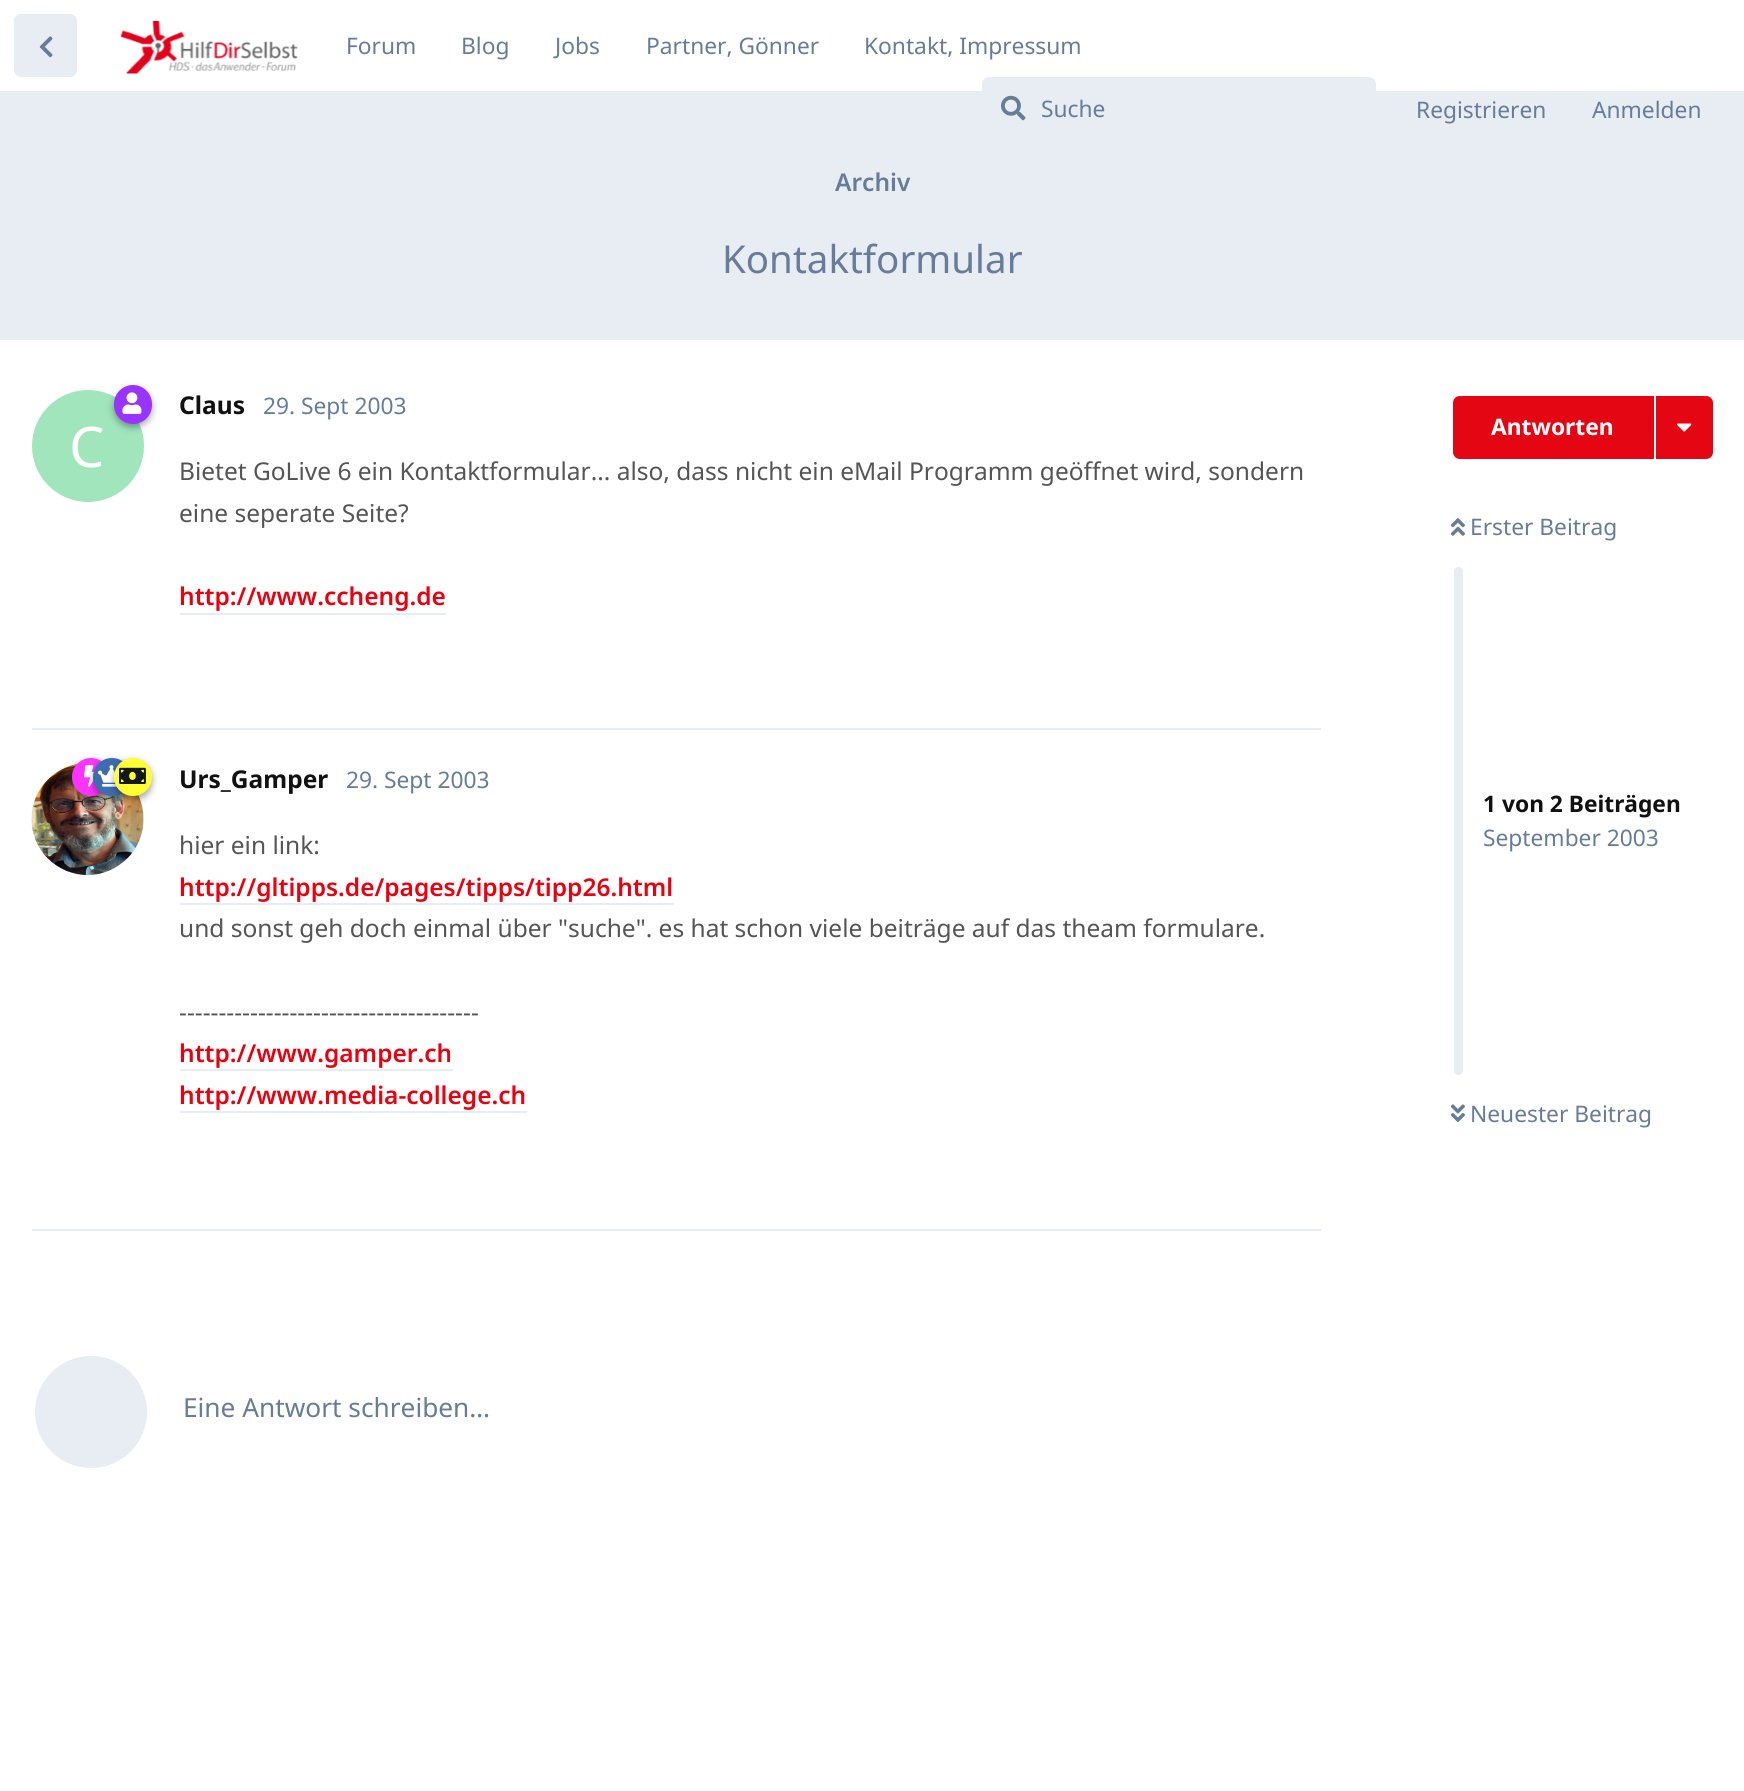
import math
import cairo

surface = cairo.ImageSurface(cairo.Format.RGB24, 1744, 1791)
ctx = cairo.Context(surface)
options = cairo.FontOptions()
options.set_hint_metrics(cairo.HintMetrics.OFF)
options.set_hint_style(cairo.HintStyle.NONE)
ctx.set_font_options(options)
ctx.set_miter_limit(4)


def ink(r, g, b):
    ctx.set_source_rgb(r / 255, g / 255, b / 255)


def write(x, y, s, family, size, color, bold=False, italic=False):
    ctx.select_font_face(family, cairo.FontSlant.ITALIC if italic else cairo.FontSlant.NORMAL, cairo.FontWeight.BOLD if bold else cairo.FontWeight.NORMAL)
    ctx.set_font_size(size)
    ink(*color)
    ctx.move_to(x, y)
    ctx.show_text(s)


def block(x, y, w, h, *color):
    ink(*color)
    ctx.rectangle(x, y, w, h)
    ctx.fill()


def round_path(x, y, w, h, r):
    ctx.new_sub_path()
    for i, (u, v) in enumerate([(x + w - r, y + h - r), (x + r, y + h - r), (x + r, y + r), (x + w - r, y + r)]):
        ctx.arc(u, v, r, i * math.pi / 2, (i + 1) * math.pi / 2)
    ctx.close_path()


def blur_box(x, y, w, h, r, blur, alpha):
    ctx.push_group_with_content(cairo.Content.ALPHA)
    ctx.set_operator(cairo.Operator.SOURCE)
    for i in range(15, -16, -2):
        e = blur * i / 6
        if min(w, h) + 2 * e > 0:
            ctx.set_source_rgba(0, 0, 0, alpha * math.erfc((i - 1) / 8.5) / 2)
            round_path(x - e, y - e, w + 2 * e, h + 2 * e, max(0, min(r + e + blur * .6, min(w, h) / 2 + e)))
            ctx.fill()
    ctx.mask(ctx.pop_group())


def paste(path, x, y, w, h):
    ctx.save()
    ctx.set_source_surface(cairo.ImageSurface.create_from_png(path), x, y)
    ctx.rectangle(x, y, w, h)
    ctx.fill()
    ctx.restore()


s1 = dict(family="Noto Sans", size=22.75, color=(102, 124, 153))
s2 = dict(family="Noto Sans SemiBold", size=24.5, color=(102, 124, 153))
s3 = dict(family="Noto Sans", size=38.5, color=(102, 124, 153))
s4 = dict(family="Noto Sans", size=24.5, color=(17, 17, 17), bold=True)
s5 = dict(family="Noto Sans", size=56, color=(255, 255, 255))
s6 = dict(family="Noto Sans", size=24.5, color=(85, 85, 85))
s7 = dict(family="Noto Sans SemiBold", size=24.5, color=(234, 0, 14))
s8 = dict(family="Noto Sans", size=26.25, color=(102, 124, 153))
s9 = dict(family="Noto Sans", size=22.75, color=(255, 255, 255), bold=True)
s10 = dict(family="Noto Sans", size=22.75, color=(17, 17, 17), bold=True)

ink(255, 255, 255)
ctx.paint()
ink(232, 236, 243)
round_path(14, 14, 63, 63, 7)
ctx.fill()
paste("pic1.png", 39, 36, 14, 22)
paste("pic2.png", 120, 21, 178, 53)
write(346, 54, "Forum", **s1)
write(461, 54, "Blog", **s1)
write(555, 54, "Jobs", **s1)
write(646, 54, "Partner, Gönner", **s1)
write(864, 54, "Kontakt, Impressum", **s1)
block(0, 91, 1744, 249, 232, 236, 243)
round_path(982, 77, 394, 63, 7)
ctx.fill()
paste("pic3.png", 1001, 95, 25, 26)
write(1041, 117, "Suche", **s1)
write(1416, 118, "Registrieren", **s1)
write(1592, 118, "Anmelden", **s1)
write(835, 191, "Archiv", **s2)
write(722, 273, "Kontaktformular", **s3)
block(32, 728, 1289, 2, 232, 236, 243)
ink(160, 229, 188)
ctx.new_path()
ctx.arc(88, 446, 56, 0, 2 * math.pi)
ctx.fill()
ink(0, 0, 0)
blur_box(114, 389, 38, 38, 19, 3.5, 0.35)
ink(153, 51, 255)
round_path(114, 385, 38, 39, 19)
ctx.fill()
paste("pic4.png", 122, 392, 20, 22)
write(179, 414, "Claus", **s4)
write(69, 467, "C", **s5)
write(263, 414, "29. Sept 2003", **s1)
write(179, 480, "Bietet GoLive 6 ein Kontaktformular... also, dass nicht ein eMail Programm geöffnet wird, sondern", **s6)
write(179, 522, "eine seperate Seite?", **s6)
write(179, 605, "http://www.ccheng.de", **s7)
block(180, 613, 266, 2, 232, 236, 243)
block(32, 1229, 1289, 2, 232, 236, 243)
ctx.new_path()
ctx.arc(88, 819, 56, 0, 2 * math.pi)
ctx.fill()
paste("pic8.png", 31, 763, 113, 112)
ink(0, 0, 0)
blur_box(72, 761, 38, 39, 19, 3.5, 0.35)
ink(255, 51, 255)
ctx.arc(91, 777, 19, 0, 2 * math.pi)
ctx.fill()
paste("pic5.png", 84, 765, 10, 22)
ink(0, 0, 0)
blur_box(93, 761, 38, 39, 19, 3.5, 0.35)
ink(61, 109, 175)
ctx.arc(112, 777, 19, 0, 2 * math.pi)
ctx.fill()
paste("pic6.png", 98, 765, 19, 22)
ink(0, 0, 0)
blur_box(114, 761, 38, 39, 19, 3.5, 0.35)
ink(255, 255, 51)
ctx.arc(133, 777, 19, 0, 2 * math.pi)
ctx.fill()
paste("pic7.png", 119, 767, 27, 17)
write(179, 788, "Urs_Gamper", **s4)
write(346, 788, "29. Sept 2003", **s1)
write(179, 854, "hier ein link:", **s6)
write(179, 896, "http://gltipps.de/pages/tipps/tipp26.html", **s7)
block(180, 903, 494, 2, 232, 236, 243)
write(179, 937, "und sonst geh doch einmal über \"suche\". es hat schon viele beiträge auf das theam formulare.", **s6)
write(179, 1021, "--------------------------------------", **s6)
write(179, 1062, "http://www.gamper.ch", **s7)
block(180, 1069, 273, 2, 232, 236, 243)
write(179, 1104, "http://www.media-college.ch", **s7)
block(180, 1111, 347, 2, 232, 236, 243)
ctx.new_path()
ctx.arc(91, 1412, 56, 0, 2 * math.pi)
ctx.fill()
write(183, 1417, "Eine Antwort schreiben…", **s8)
ink(228, 6, 19)
ctx.new_path()
ctx.move_to(1460, 396)
ctx.line_to(1654, 396)
ctx.line_to(1654, 459)
ctx.line_to(1460, 459)
ctx.curve_to(1456, 459, 1453, 456, 1453, 452)
ctx.line_to(1453, 403)
ctx.curve_to(1453, 399, 1456, 396, 1460, 396)
ctx.close_path()
ctx.fill()
write(1491, 435, "Antworten", **s9)
ink(228, 6, 19)
ctx.new_path()
ctx.move_to(1656, 396)
ctx.line_to(1706, 396)
ctx.curve_to(1710, 396, 1713, 399, 1713, 403)
ctx.line_to(1713, 452)
ctx.curve_to(1713, 456, 1710, 459, 1706, 459)
ctx.line_to(1656, 459)
ctx.close_path()
ctx.fill()
paste("pic9.png", 1677, 423, 15, 9)
paste("pic10.png", 1450, 518, 15, 18)
write(1470, 535, "Erster Beitrag", **s1)
ink(232, 236, 243)
round_path(1454, 567, 9, 508, 4.5)
ctx.fill()
write(1483, 812, "1 von 2 Beiträgen", **s10)
write(1483, 846, "September 2003", **s1)
paste("pic11.png", 1450, 1104, 15, 18)
write(1470, 1122, "Neuester Beitrag", **s1)
surface.write_to_png("screenshot.png")
